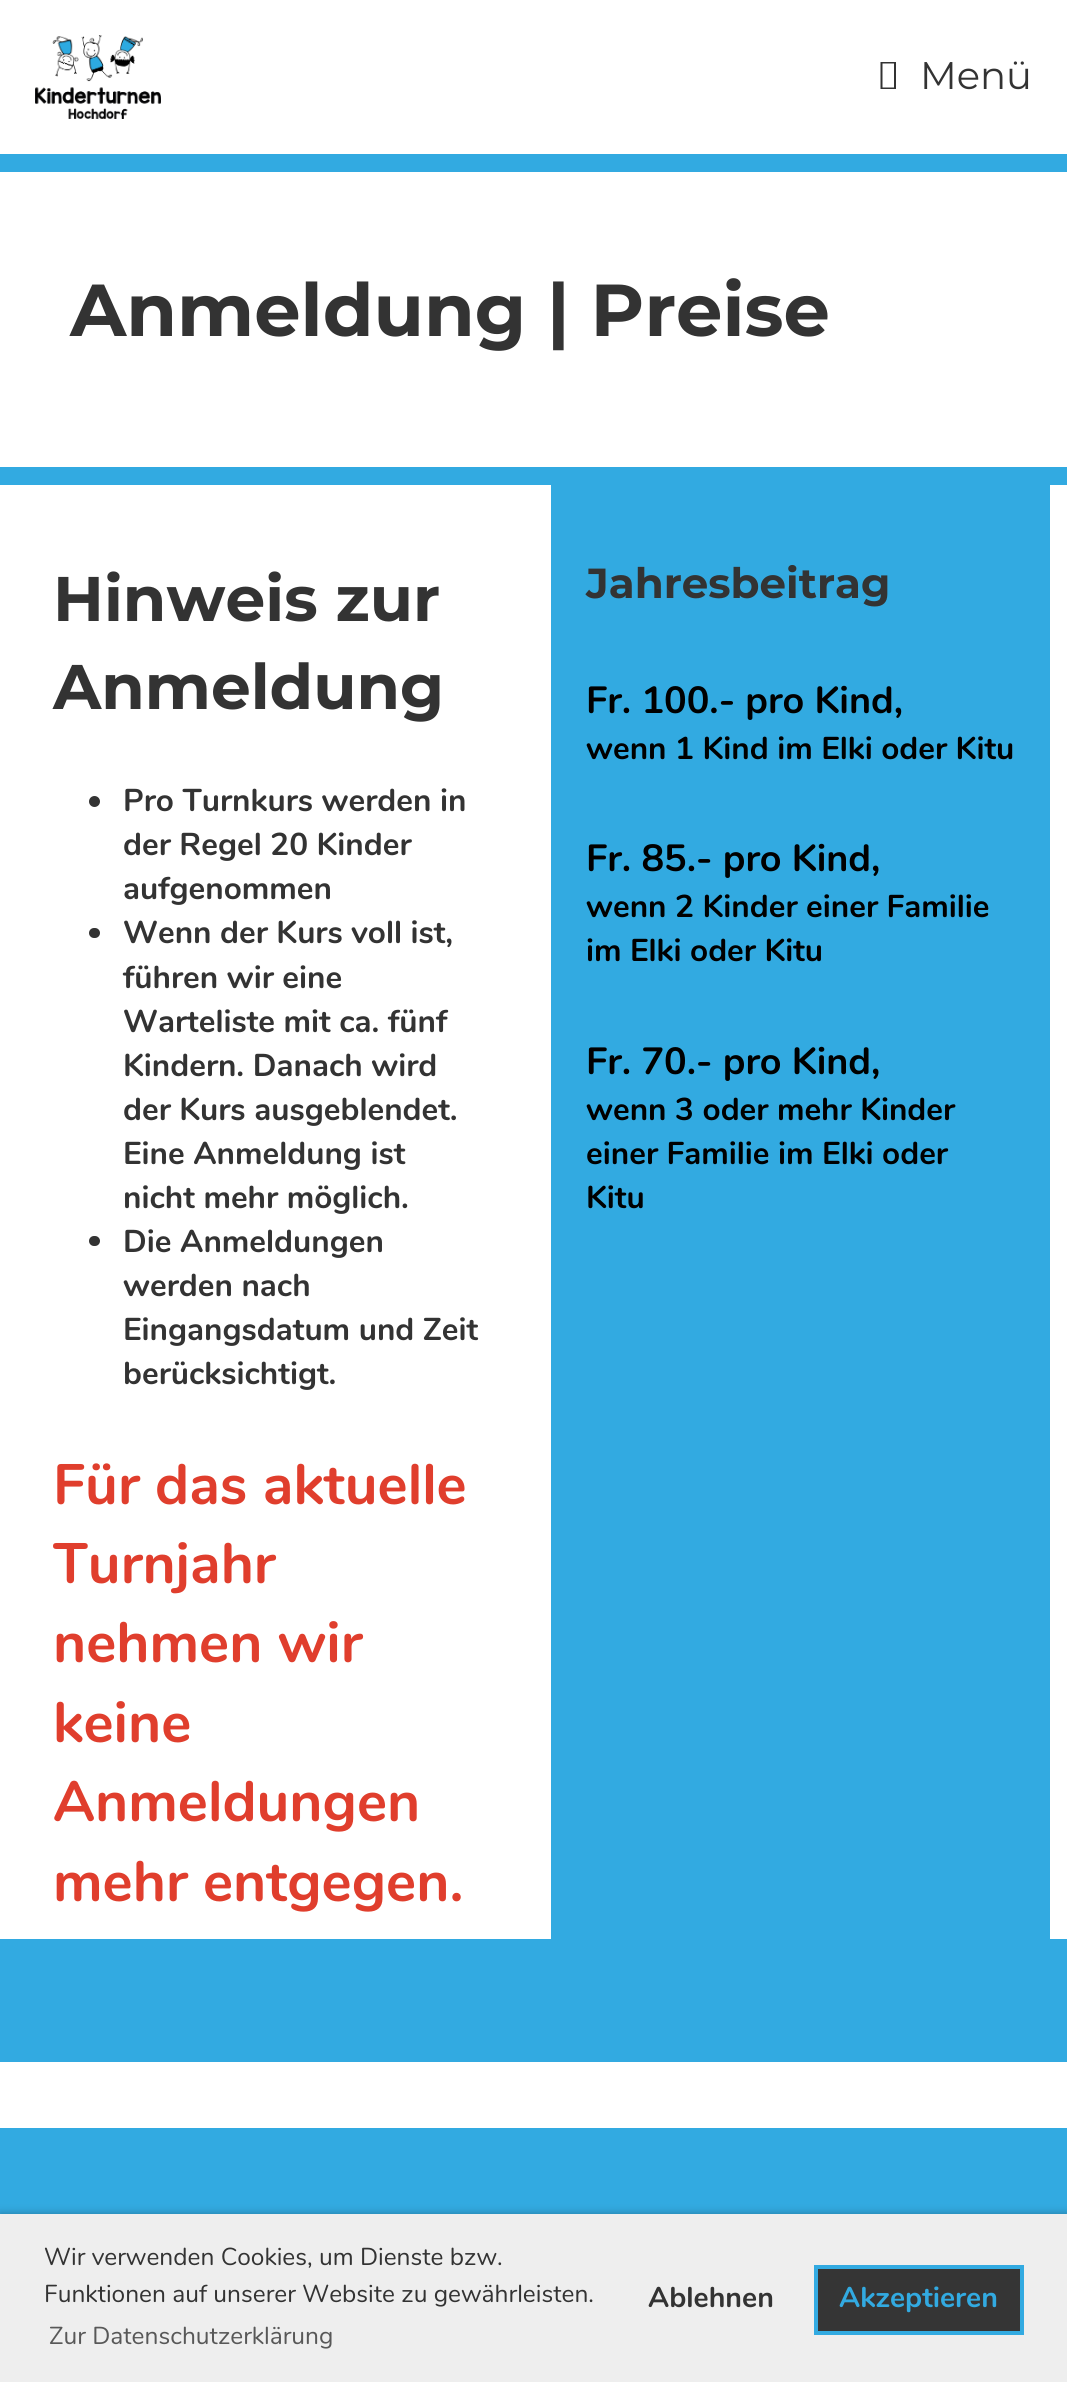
import math
import cairo

surface = cairo.ImageSurface(cairo.Format.RGB24, 1067, 2382)
ctx = cairo.Context(surface)
options = cairo.FontOptions()
options.set_hint_metrics(cairo.HintMetrics.OFF)
options.set_hint_style(cairo.HintStyle.NONE)
ctx.set_font_options(options)
ctx.set_miter_limit(4)


def ink(r, g, b):
    ctx.set_source_rgb(r / 255, g / 255, b / 255)


def write(x, y, s, family, size, color, bold=False, italic=False):
    ctx.select_font_face(family, cairo.FontSlant.ITALIC if italic else cairo.FontSlant.NORMAL, cairo.FontWeight.BOLD if bold else cairo.FontWeight.NORMAL)
    ctx.set_font_size(size)
    ink(*color)
    ctx.move_to(x, y)
    ctx.show_text(s)


def block(x, y, w, h, *color):
    ink(*color)
    ctx.rectangle(x, y, w, h)
    ctx.fill()


def round_path(x, y, w, h, r):
    ctx.new_sub_path()
    for i, (u, v) in enumerate([(x + w - r, y + h - r), (x + r, y + h - r), (x + r, y + r), (x + w - r, y + r)]):
        ctx.arc(u, v, r, i * math.pi / 2, (i + 1) * math.pi / 2)
    ctx.close_path()


def blur_box(x, y, w, h, r, blur, alpha):
    ctx.push_group_with_content(cairo.Content.ALPHA)
    ctx.set_operator(cairo.Operator.SOURCE)
    for i in range(15, -16, -2):
        e = blur * i / 6
        if min(w, h) + 2 * e > 0:
            ctx.set_source_rgba(0, 0, 0, alpha * math.erfc((i - 1) / 8.5) / 2)
            round_path(x - e, y - e, w + 2 * e, h + 2 * e, max(0, min(r + e + blur * .6, min(w, h) / 2 + e)))
            ctx.fill()
    ctx.mask(ctx.pop_group())


def paste(path, x, y, w, h):
    ctx.save()
    ctx.set_source_surface(cairo.ImageSurface.create_from_png(path), x, y)
    ctx.rectangle(x, y, w, h)
    ctx.fill()
    ctx.restore()


s1 = dict(family="Montserrat", size=38.5, color=(51, 51, 51))
s2 = dict(family="Montserrat", size=73.5, color=(51, 51, 51), bold=True)
s3 = dict(family="Montserrat", size=63, color=(51, 51, 51), bold=True)
s4 = dict(family="Nunito", size=31.5, color=(51, 51, 51), bold=True)
s5 = dict(family="Nunito", size=56.75, color=(224, 62, 45), bold=True)
s6 = dict(family="Montserrat", size=42, color=(51, 51, 51), bold=True)
s7 = dict(family="Nunito", size=37.75, color=(0, 0, 0), bold=True)
s8 = dict(family="Nunito", size=31.5, color=(0, 0, 0), bold=True)
s9 = dict(family="Nunito", size=24.5, color=(51, 51, 51))
s10 = dict(family="Nunito", size=24.5, color=(88, 88, 88))
s11 = dict(family="Nunito", size=28.5, color=(51, 51, 51), bold=True)
s12 = dict(family="Nunito", size=28.5, color=(50, 170, 225), bold=True)

ink(255, 255, 255)
ctx.paint()
paste("pic1.png", 35, 35, 126, 84)
ink(51, 51, 51)
ctx.new_path()
ctx.move_to(880.5, 89)
ctx.line_to(880.5, 62)
ctx.line_to(896, 62)
ctx.line_to(896, 89)
ctx.close_path()
ctx.move_to(882.5, 87.5)
ctx.line_to(894, 87.5)
ctx.line_to(894, 63.5)
ctx.line_to(882.5, 63.5)
ctx.close_path()
ctx.fill()
write(920, 89, "Menü", **s1)
block(0, 154, 1067, 18, 50, 170, 225)
write(70, 336, "Anmeldung | Preise", **s2)
block(0, 467, 1067, 18, 50, 170, 225)
write(53, 621, "Hinweis zur", **s3)
write(53, 709, "Anmeldung", **s3)
ctx.new_path()
ctx.arc(94.5, 801.5, 5.5, 0, 2 * math.pi)
ctx.fill()
write(123, 811, "Pro Turnkurs werden in", **s4)
write(123, 855, "der Regel 20 Kinder", **s4)
write(123, 899, "aufgenommen", **s4)
round_path(89, 928, 11, 10, 5)
ctx.fill()
write(123, 943, "Wenn der Kurs voll ist,", **s4)
write(123, 988, "führen wir eine", **s4)
write(123, 1032, "Warteliste mit ca. fünf", **s4)
write(123, 1076, "Kindern. Danach wird", **s4)
write(123, 1120, "der Kurs ausgeblendet.", **s4)
write(123, 1164, "Eine Anmeldung ist", **s4)
write(123, 1208, "nicht mehr möglich.", **s4)
round_path(89, 1236, 11, 10, 5)
ctx.fill()
write(123, 1252, "Die Anmeldungen", **s4)
write(123, 1296, "werden nach", **s4)
write(123, 1340, "Eingangsdatum und Zeit", **s4)
write(123, 1384, "berücksichtigt.", **s4)
write(53, 1504, "Für das aktuelle", **s5)
write(53, 1583, "Turnjahr", **s5)
write(53, 1662, "nehmen wir", **s5)
write(53, 1742, "keine", **s5)
write(53, 1821, "Anmeldungen", **s5)
write(53, 1901, "mehr entgegen.", **s5)
block(551, 485, 499, 1454, 50, 170, 225)
write(586, 598, "Jahresbeitrag", **s6)
write(586, 713, "Fr. 100.- pro Kind,", **s7)
write(586, 759, "wenn 1 Kind im Elki oder Kitu", **s8)
write(586, 871, "Fr. 85.- pro Kind,", **s7)
write(586, 917, "wenn 2 Kinder einer Familie", **s8)
write(586, 961, "im Elki oder Kitu", **s8)
write(586, 1074, "Fr. 70.- pro Kind,", **s7)
write(586, 1120, "wenn 3 oder mehr Kinder", **s8)
write(586, 1164, "einer Familie im Elki oder", **s8)
write(586, 1208, "Kitu", **s8)
block(0, 1939, 1067, 123, 50, 170, 225)
block(0, 2128, 1067, 86, 50, 170, 225)
ink(0, 0, 0)
blur_box(0, 2214, 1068, 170, 0, 4.5, 0.3)
block(0, 2214, 1067, 168, 238, 238, 238)
write(44, 2265, "Wir verwenden Cookies, um Dienste bzw.", **s9)
write(44, 2302, "Funktionen auf unserer Website zu gewährleisten.", **s9)
write(49, 2344, "Zur Datenschutzerklärung", **s10)
write(648, 2307, "Ablehnen", **s11)
ink(53, 53, 53)
ctx.rectangle(816, 2267, 206, 66)
ctx.fill_preserve()
ink(50, 170, 225)
ctx.set_line_width(4)
ctx.stroke()
write(839, 2307, "Akzeptieren", **s12)
surface.write_to_png("screenshot.png")
